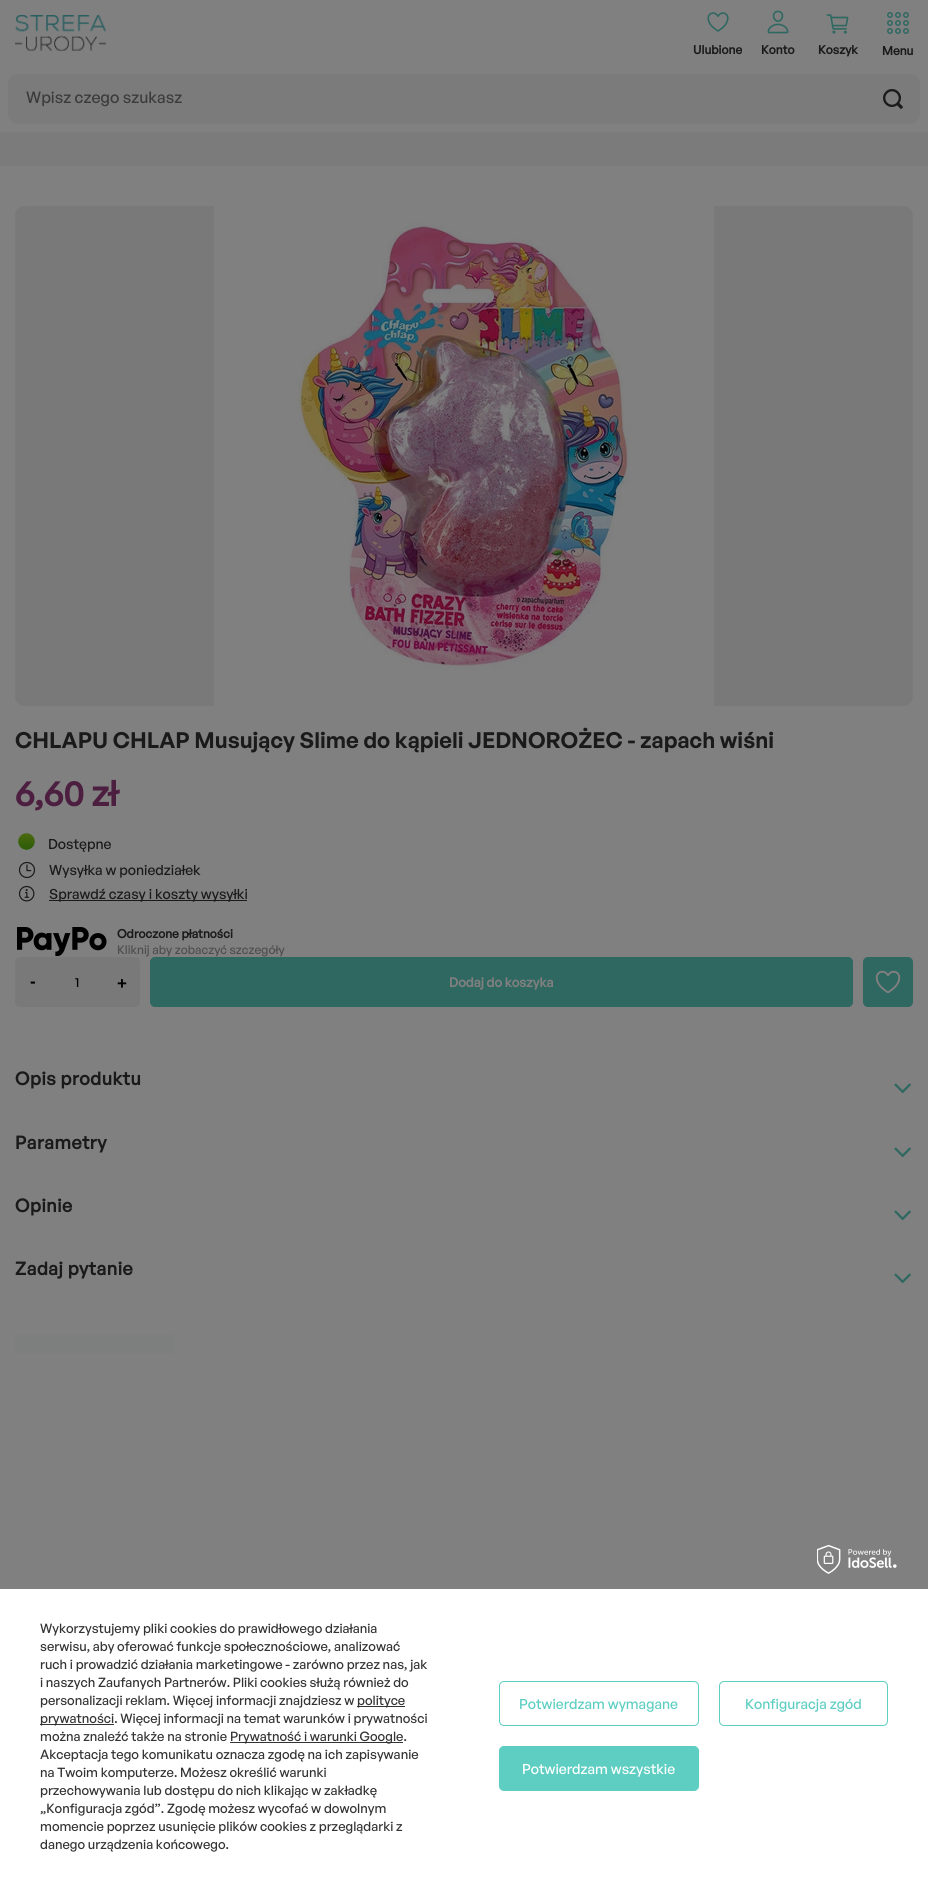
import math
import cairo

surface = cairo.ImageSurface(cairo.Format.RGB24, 928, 1883)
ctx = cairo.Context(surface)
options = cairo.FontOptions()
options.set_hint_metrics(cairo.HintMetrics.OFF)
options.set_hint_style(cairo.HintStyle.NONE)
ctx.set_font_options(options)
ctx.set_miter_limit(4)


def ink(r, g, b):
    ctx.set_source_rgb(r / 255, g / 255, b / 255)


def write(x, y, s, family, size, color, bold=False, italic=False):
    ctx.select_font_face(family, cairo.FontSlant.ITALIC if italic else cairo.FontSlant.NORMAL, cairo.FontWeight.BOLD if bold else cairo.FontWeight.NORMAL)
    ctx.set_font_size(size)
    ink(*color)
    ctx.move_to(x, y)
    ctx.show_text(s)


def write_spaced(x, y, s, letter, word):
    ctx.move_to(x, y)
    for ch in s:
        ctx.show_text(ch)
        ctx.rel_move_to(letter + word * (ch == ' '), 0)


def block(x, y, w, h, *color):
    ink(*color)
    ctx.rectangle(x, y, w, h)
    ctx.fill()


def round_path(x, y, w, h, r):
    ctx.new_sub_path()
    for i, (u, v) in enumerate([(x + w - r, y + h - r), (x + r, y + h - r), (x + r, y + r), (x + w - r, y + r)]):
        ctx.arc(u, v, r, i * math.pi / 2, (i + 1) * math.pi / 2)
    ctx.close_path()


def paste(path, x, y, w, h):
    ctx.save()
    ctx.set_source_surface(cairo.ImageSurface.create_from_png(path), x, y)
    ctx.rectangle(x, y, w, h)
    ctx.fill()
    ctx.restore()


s1 = dict(family="General Sans", size=12, color=(26, 26, 26), bold=True)
s2 = dict(family="General Sans Medium", size=16, color=(59, 59, 59))
s3 = dict(family="General Sans SemiBold", size=22, color=(26, 26, 26))
s4 = dict(family="General Sans", size=35, color=(76, 30, 63), bold=True)
s5 = dict(family="General Sans Medium", size=14, color=(26, 26, 26))
s6 = dict(family="General Sans Medium", size=12, color=(77, 77, 77))
s7 = dict(family="Liberation Sans", size=17, color=(0, 0, 0), bold=True)
s8 = dict(family="General Sans Medium", size=13, color=(0, 0, 0))
s9 = dict(family="General Sans", size=13, color=(128, 128, 128), bold=True)
s10 = dict(family="General Sans Medium", size=13, color=(51, 51, 51))
s11 = dict(family="General Sans Medium", size=14, color=(94, 206, 194))
s12 = dict(family="General Sans Medium", size=14, color=(255, 255, 255))

ink(128, 128, 128)
ctx.paint()
paste("pic1.png", 15, 15, 91, 36)
paste("pic2.png", 707, 12, 22, 20)
write(693, 54, "Ulubione", **s1)
paste("pic3.png", 767, 10, 22, 24)
write(761, 54, "Konto", **s1)
paste("pic4.png", 826, 14, 23, 20)
write(818, 54, "Koszyk", **s1)
paste("pic5.png", 887, 12, 22, 22)
write(882, 55, "Menu", **s1)
ink(123, 123, 123)
round_path(8, 74, 912, 50, 10)
ctx.fill()
write(26, 103, "Wpisz czego szukasz", **s2)
paste("pic6.png", 883, 89, 20, 20)
block(0, 132, 928, 34, 123, 123, 123)
ink(121, 121, 121)
round_path(15, 206, 898, 500, 10)
ctx.fill()
paste("pic7.png", 214, 206, 500, 500)
write(15, 748, "CHLAPU CHLAP Musujący Slime do kąpieli JEDNOROŻEC - zapach wiśni", **s3)
write(15, 806, "6,60 zł", **s4)
paste("pic8.png", 18, 833, 17, 17)
write(48, 849, "Dostępne", **s5)
paste("pic9.png", 18, 861, 18, 18)
write(49, 875, "Wysyłka w poniedziałek", **s5)
paste("pic10.png", 18, 885, 17, 17)
block(49, 900, 198, 1, 26, 26, 26)
write(49, 899, "Sprawdź czasy i koszty wysyłki", **s5)
paste("pic11.png", 17, 927, 90, 29)
write(117, 938, "Odroczone płatności", **s1)
write(117, 954, "Kliknij aby zobaczyć szczegóły", **s6)
ink(121, 121, 121)
round_path(15, 957, 125, 50, 5)
ctx.fill()
write(30, 987, "-", **s7)
write(75, 987, "1", **s8)
write(117, 989, "+", **s7)
ink(47, 103, 97)
round_path(150.5, 957.5, 702, 49, 4.5)
ctx.fill_preserve()
ctx.set_line_width(1)
ctx.stroke()
write(449, 987, "Dodaj do koszyka", **s9)
ink(47, 103, 97)
round_path(863, 957, 50, 50, 5)
ctx.fill()
paste("pic12.png", 875, 970, 26, 24)
ctx.set_font_size(18)
ink(26, 26, 26)
write_spaced(15, 1085, "Opis produktu", 0.5, 0)
paste("pic13.png", 894, 1083, 17, 11)
write_spaced(15, 1149, "Parametry", 0.5, 0)
paste("pic13.png", 894, 1147, 17, 11)
write_spaced(15, 1212, "Opinie", 0.5, 0)
paste("pic13.png", 894, 1210, 17, 11)
write_spaced(15, 1275, "Zadaj pytanie", 0.5, 0)
paste("pic13.png", 894, 1273, 17, 11)
block(15, 1335, 160, 18, 125, 127, 127)
block(0, 1589, 928, 294, 255, 255, 255)
paste("pic14.png", 817, 1545, 80, 29)
write(40, 1633, "Wykorzystujemy pliki cookies do prawidłowego działania", **s10)
write(40, 1651, "serwisu, aby oferować funkcje społecznościowe, analizować", **s10)
write(40, 1669, "ruch i prowadzić działania marketingowe - zarówno przez nas, jak", **s10)
write(40, 1687, "i naszych Zaufanych Partnerów. Pliki cookies służą również do", **s10)
write(40, 1705, "personalizacji reklam. Więcej informacji znajdziesz w", **s10)
block(357, 1706, 48, 1, 51, 51, 51)
write(357, 1705, "polityce", **s10)
block(40, 1724, 74, 1, 51, 51, 51)
write(40, 1723, "prywatności. Więcej informacji na temat warunków i prywatności", **s10)
write(40, 1741, "można znaleźć także na stronie", **s10)
block(230, 1742, 173, 1, 51, 51, 51)
write(230, 1741, "Prywatność i warunki Google.", **s10)
write(40, 1759, "Akceptacja tego komunikatu oznacza zgodę na ich zapisywanie", **s10)
write(40, 1777, "na Twoim komputerze. Możesz określić warunki", **s10)
write(40, 1795, "przechowywania lub dostępu do nich klikając w zakładkę", **s10)
write(40, 1813, "„Konfiguracja zgód”. Zgodę możesz wycofać w dowolnym", **s10)
write(40, 1831, "momencie poprzez usunięcie plików cookies z przeglądarki z", **s10)
write(40, 1849, "danego urządzenia końcowego.", **s10)
round_path(499.5, 1681.5, 199, 44, 4.5)
ink(94, 206, 194)
ctx.stroke()
write(519, 1709, "Potwierdzam wymagane", **s11)
round_path(719.5, 1681.5, 168, 44, 4.5)
ctx.stroke()
write(745, 1709, "Konfiguracja zgód", **s11)
round_path(499.5, 1746.5, 199, 44, 4.5)
ctx.fill_preserve()
ctx.stroke()
write(522, 1774, "Potwierdzam wszystkie", **s12)
surface.write_to_png("screenshot.png")
